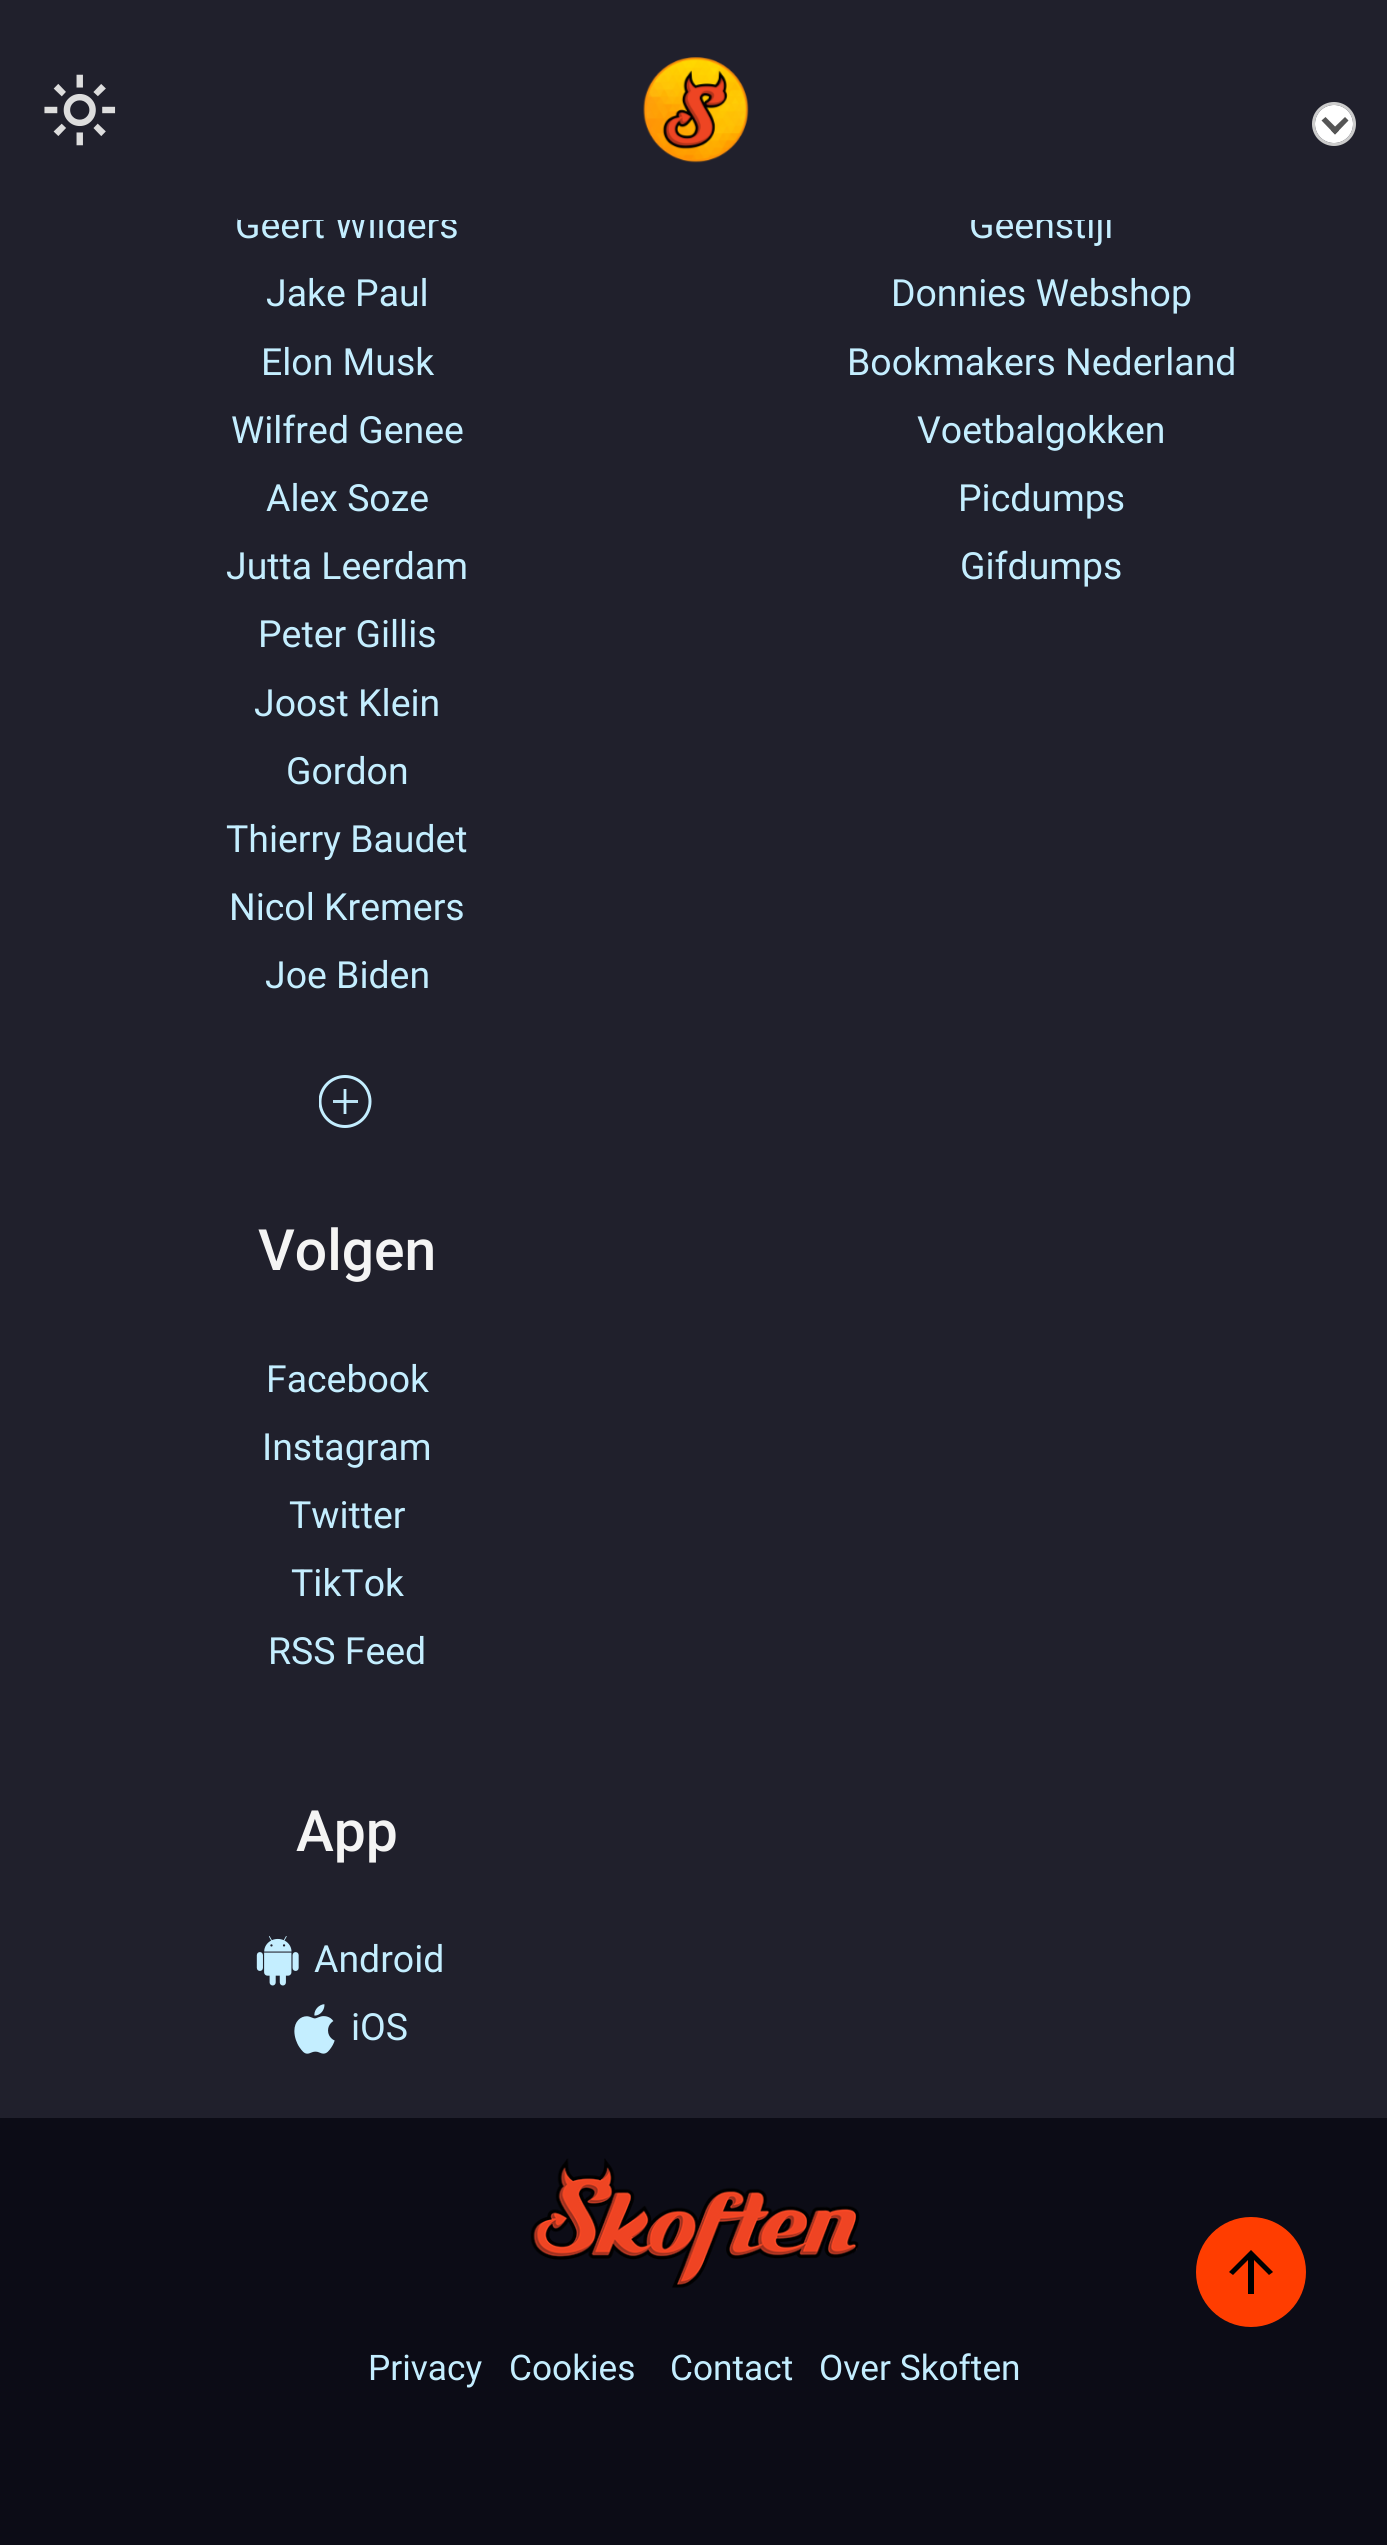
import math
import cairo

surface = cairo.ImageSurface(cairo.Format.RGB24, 1387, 2545)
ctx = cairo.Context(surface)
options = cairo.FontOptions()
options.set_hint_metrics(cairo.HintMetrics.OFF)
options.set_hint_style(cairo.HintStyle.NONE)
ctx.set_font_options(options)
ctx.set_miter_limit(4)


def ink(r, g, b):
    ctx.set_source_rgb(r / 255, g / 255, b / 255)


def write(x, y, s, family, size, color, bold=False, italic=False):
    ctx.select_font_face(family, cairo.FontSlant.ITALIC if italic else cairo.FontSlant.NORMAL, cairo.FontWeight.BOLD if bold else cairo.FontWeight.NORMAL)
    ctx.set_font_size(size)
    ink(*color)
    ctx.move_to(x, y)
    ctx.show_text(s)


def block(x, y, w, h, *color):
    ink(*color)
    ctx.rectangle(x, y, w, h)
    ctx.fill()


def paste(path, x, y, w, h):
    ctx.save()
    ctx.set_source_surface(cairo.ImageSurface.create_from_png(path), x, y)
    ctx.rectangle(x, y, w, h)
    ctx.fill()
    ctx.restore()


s1 = dict(family="Roboto", size=37.4, color=(196, 238, 255))
s2 = dict(family="Roboto Medium", size=57, color=(244, 244, 244))
s3 = dict(family="Roboto", size=35.25, color=(196, 238, 255))

ink(32, 32, 44)
ctx.paint()
write(235, 238, "Geert Wilders", **s1)
write(969, 238, "Geenstijl", **s1)
block(238, 209, 873, 11, 32, 32, 44)
paste("pic1.png", 44, 74, 72, 72)
paste("pic2.png", 643, 57, 106, 106)
ctx.arc(1334, 124, 20.5, 0, 2 * math.pi)
ink(204, 204, 204)
ctx.set_line_width(3)
ctx.stroke()
ink(255, 255, 255)
ctx.arc(1334, 124, 19, 0, 2 * math.pi)
ctx.fill()
ink(85, 85, 85)
ctx.new_path()
ctx.move_to(1345, 117)
ctx.line_to(1348.5, 120.5)
ctx.line_to(1335, 134.5)
ctx.line_to(1331, 130.5)
ctx.close_path()
ctx.fill()
ctx.new_path()
ctx.move_to(1325.5, 117)
ctx.line_to(1339, 130.5)
ctx.line_to(1335, 134.5)
ctx.line_to(1321.5, 120.5)
ctx.close_path()
ctx.fill()
write(266, 306, "Jake Paul", **s1)
write(261, 375, "Elon Musk", **s1)
write(231, 443, "Wilfred Genee", **s1)
write(266, 511, "Alex Soze", **s1)
write(226, 579, "Jutta Leerdam", **s1)
write(258, 647, "Peter Gillis", **s1)
write(254, 716, "Joost Klein", **s1)
write(286, 784, "Gordon", **s1)
write(226, 852, "Thierry Baudet", **s1)
write(229, 920, "Nicol Kremers", **s1)
write(265, 988, "Joe Biden", **s1)
ctx.save()
ctx.rectangle(319, 1075, 55, 55)
ctx.clip()
ctx.arc(345, 1101.5, 25, 0, 2 * math.pi)
ctx.stroke()
ctx.restore()
ctx.new_path()
ctx.move_to(345, 1089)
ctx.line_to(345, 1114)
ctx.set_line_width(2.8)
ctx.stroke()
ctx.set_source_rgba(0.769, 0.933, 1, 0.93)
ctx.rectangle(333, 1100, 25, 3)
ctx.fill()
write(891, 306, "Donnies Webshop", **s1)
write(847, 375, "Bookmakers Nederland", **s1)
write(917, 443, "Voetbalgokken", **s1)
write(958, 511, "Picdumps", **s1)
write(960, 579, "Gifdumps", **s1)
write(258, 1270, "Volgen", **s2)
write(266, 1392, "Facebook", **s1)
write(262, 1460, "Instagram", **s1)
write(289, 1528, "Twitter", **s1)
write(291, 1596, "TikTok", **s1)
write(268, 1664, "RSS Feed", **s1)
write(296, 1851, "App", **s2)
paste("pic3.png", 256, 1936, 43, 50)
write(314, 1972, "Android", **s1)
paste("pic4.png", 294, 2004, 41, 50)
write(351, 2040, "iOS", **s1)
block(0, 2118, 1387, 427, 12, 12, 22)
paste("pic5.png", 530, 2158, 330, 130)
write(368, 2380, "Privacy", **s3)
write(509, 2380, "Cookies", **s3)
write(670, 2380, "Contact", **s3)
write(819, 2380, "Over Skoften", **s3)
ink(255, 61, 0)
ctx.new_path()
ctx.arc(1251, 2272, 55, 0, 2 * math.pi)
ctx.fill()
ink(0, 0, 0)
ctx.new_path()
ctx.move_to(1248, 2294)
ctx.line_to(1248, 2260)
ctx.line_to(1233, 2275)
ctx.line_to(1229, 2272)
ctx.line_to(1251, 2250)
ctx.line_to(1273, 2272)
ctx.line_to(1269, 2275)
ctx.line_to(1254, 2260)
ctx.line_to(1254, 2294)
ctx.close_path()
ctx.fill()
surface.write_to_png("screenshot.png")
